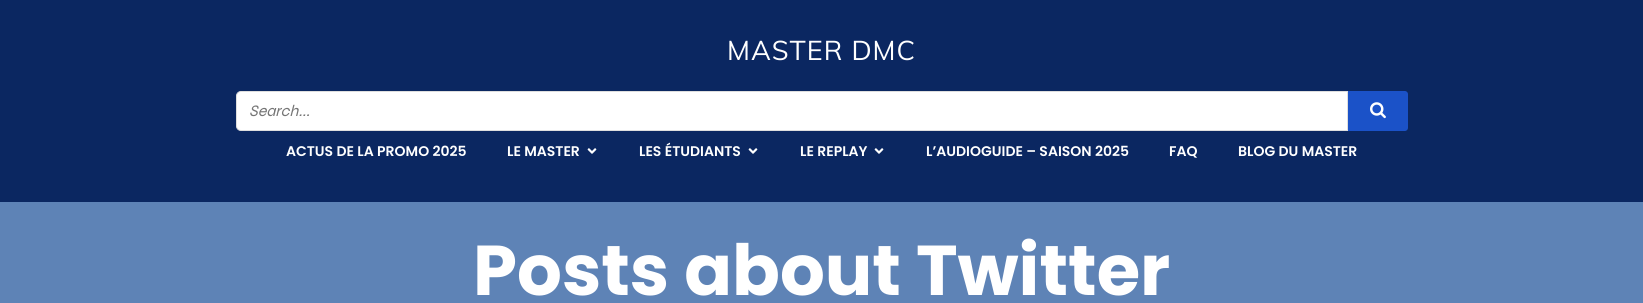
import math
import cairo

surface = cairo.ImageSurface(cairo.Format.RGB24, 1643, 303)
ctx = cairo.Context(surface)
options = cairo.FontOptions()
options.set_hint_metrics(cairo.HintMetrics.OFF)
options.set_hint_style(cairo.HintStyle.NONE)
ctx.set_font_options(options)
ctx.set_miter_limit(4)


def ink(r, g, b):
    ctx.set_source_rgb(r / 255, g / 255, b / 255)


def write(x, y, s, family, size, color, bold=False, italic=False):
    ctx.select_font_face(family, cairo.FontSlant.ITALIC if italic else cairo.FontSlant.NORMAL, cairo.FontWeight.BOLD if bold else cairo.FontWeight.NORMAL)
    ctx.set_font_size(size)
    ink(*color)
    ctx.move_to(x, y)
    ctx.show_text(s)


def write_spaced(x, y, s, letter, word):
    ctx.move_to(x, y)
    for ch in s:
        ctx.show_text(ch)
        ctx.rel_move_to(letter + word * (ch == ' '), 0)


def block(x, y, w, h, *color):
    ink(*color)
    ctx.rectangle(x, y, w, h)
    ctx.fill()


def paste(path, x, y, w, h):
    ctx.save()
    ctx.set_source_surface(cairo.ImageSurface.create_from_png(path), x, y)
    ctx.rectangle(x, y, w, h)
    ctx.fill()
    ctx.restore()


s1 = dict(family="Syne", size=16, color=(117, 117, 117), italic=True)
s2 = dict(family="Poppins SemiBold", size=14, color=(255, 255, 255))
s3 = dict(family="Poppins", size=70.5, color=(255, 255, 255), bold=True)

ink(94, 131, 182)
ctx.paint()
block(0, 0, 1643, 202, 11, 39, 97)
ctx.select_font_face("Muli")
ctx.set_font_size(27)
ink(255, 255, 255)
write_spaced(727, 60, "MASTER DMC", 1, 0)
ctx.new_path()
ctx.move_to(241, 91.5)
ctx.line_to(1347.5, 91.5)
ctx.line_to(1347.5, 130.5)
ctx.line_to(241, 130.5)
ctx.curve_to(238.5, 130.5, 236.5, 128.5, 236.5, 126)
ctx.line_to(236.5, 96)
ctx.curve_to(236.5, 93.5, 238.5, 91.5, 241, 91.5)
ctx.close_path()
ctx.fill_preserve()
ink(222, 222, 222)
ctx.set_line_width(1)
ctx.stroke()
write(249, 116, "Search...", **s1)
ink(27, 82, 200)
ctx.new_path()
ctx.move_to(1348, 91)
ctx.line_to(1405, 91)
ctx.curve_to(1406.5, 91, 1408, 92.5, 1408, 94)
ctx.line_to(1408, 128)
ctx.curve_to(1408, 129.5, 1406.5, 131, 1405, 131)
ctx.line_to(1348, 131)
ctx.close_path()
ctx.fill()
paste("pic1.png", 1370, 102, 16, 17)
write(286, 156, "ACTUS DE LA PROMO 2025", **s2)
write(507, 156, "LE MASTER", **s2)
paste("pic2.png", 587, 148, 10, 6)
write(639, 156, "LES ÉTUDIANTS", **s2)
paste("pic2.png", 748, 148, 10, 6)
write(800, 156, "LE REPLAY", **s2)
paste("pic2.png", 874, 148, 10, 6)
write(926, 156, "L’AUDIOGUIDE – SAISON 2025", **s2)
write(1169, 156, "FAQ", **s2)
write(1238, 156, "BLOG DU MASTER", **s2)
write(473, 295, "Posts about Twitter", **s3)
surface.write_to_png("screenshot.png")
